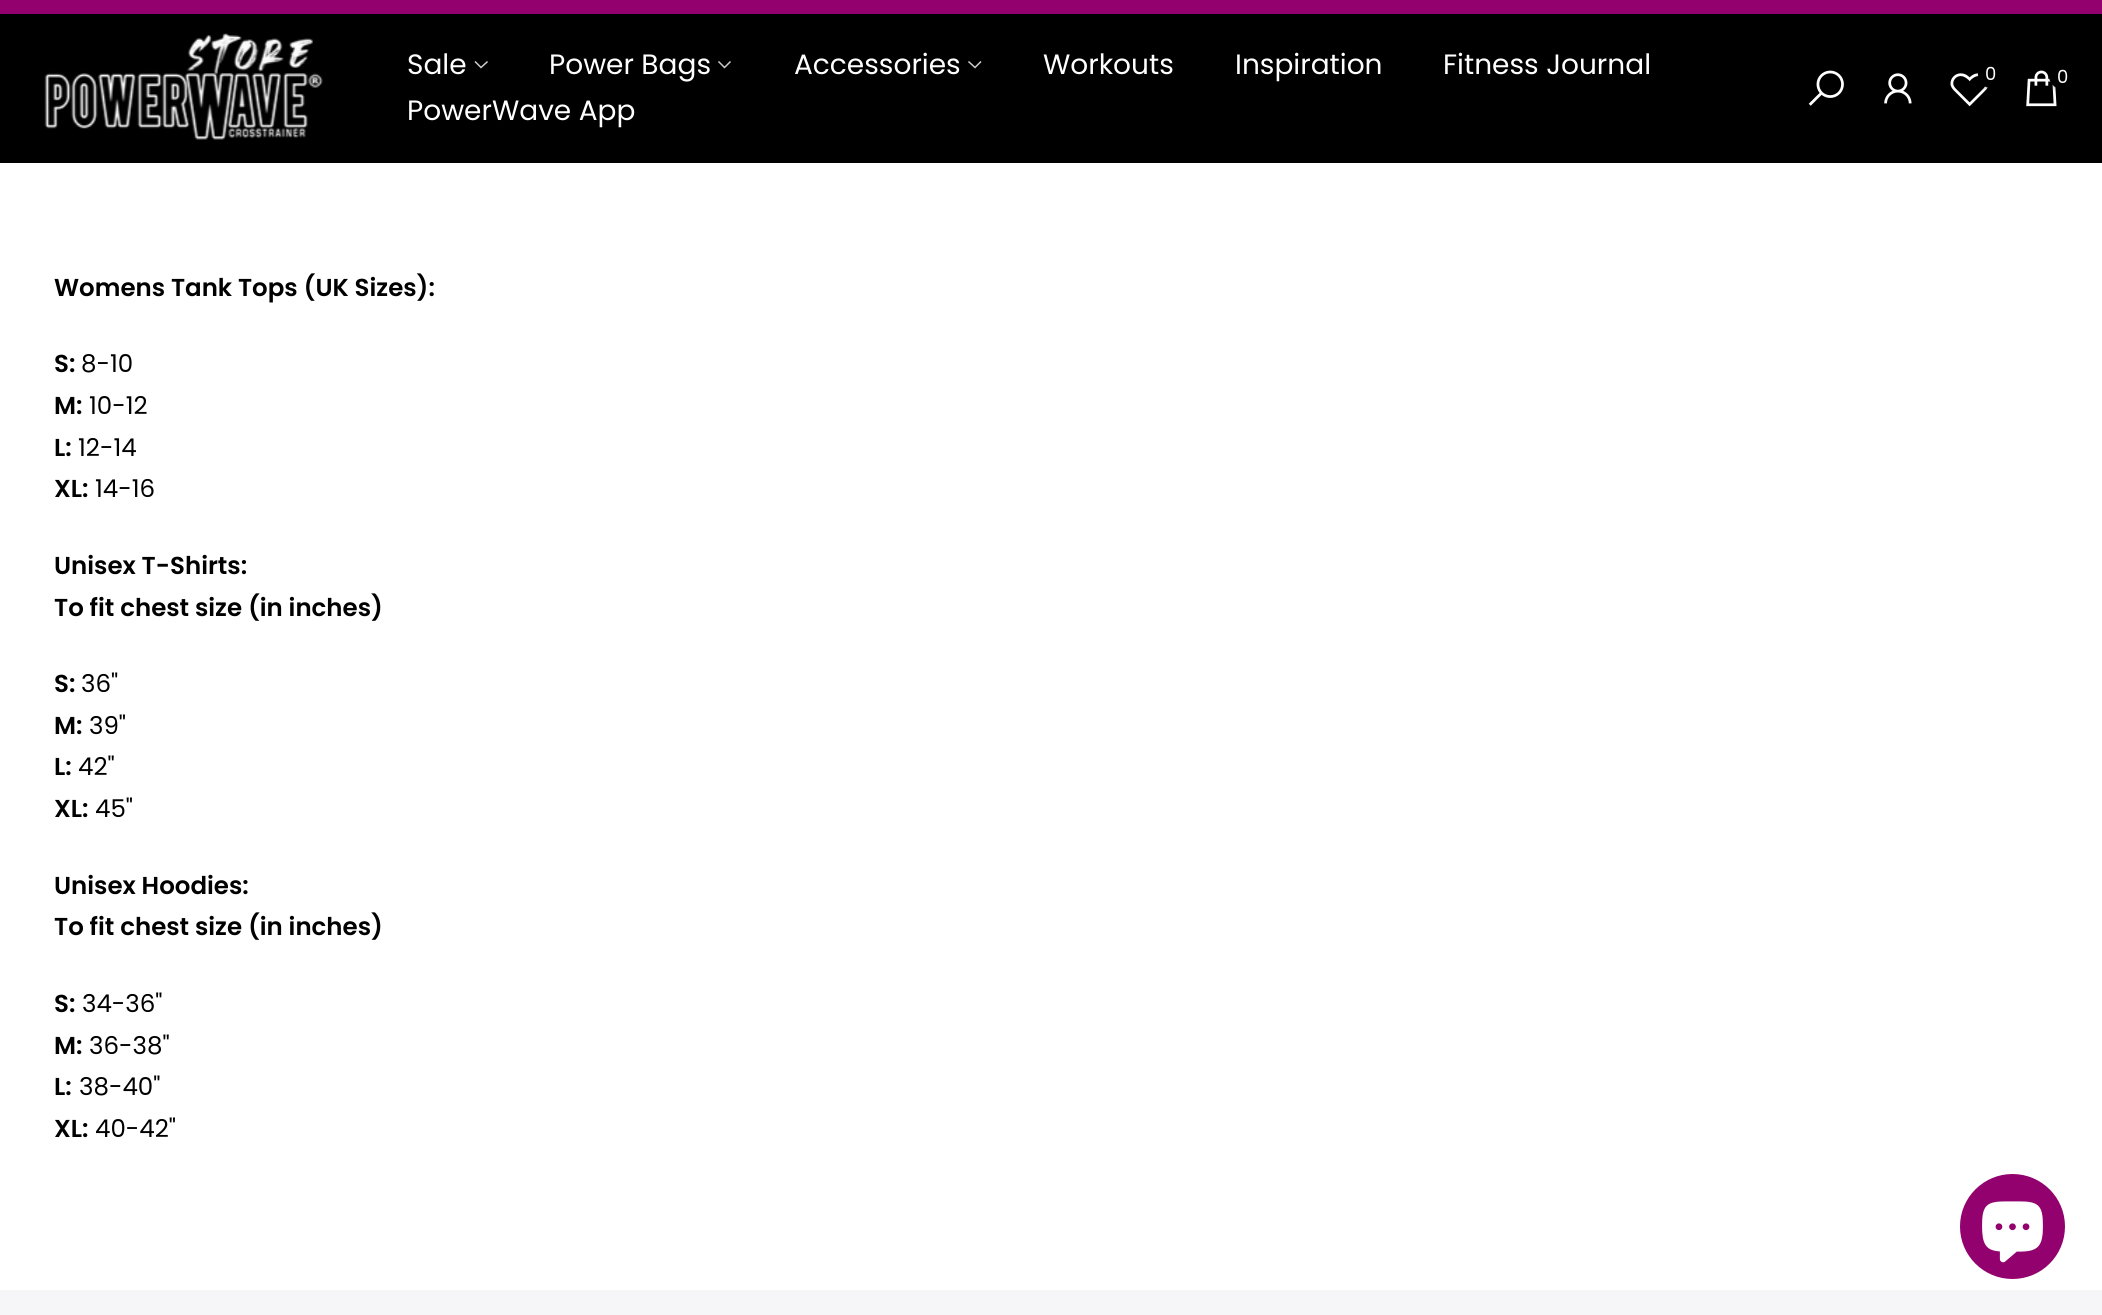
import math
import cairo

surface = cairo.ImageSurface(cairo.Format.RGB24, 2102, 1315)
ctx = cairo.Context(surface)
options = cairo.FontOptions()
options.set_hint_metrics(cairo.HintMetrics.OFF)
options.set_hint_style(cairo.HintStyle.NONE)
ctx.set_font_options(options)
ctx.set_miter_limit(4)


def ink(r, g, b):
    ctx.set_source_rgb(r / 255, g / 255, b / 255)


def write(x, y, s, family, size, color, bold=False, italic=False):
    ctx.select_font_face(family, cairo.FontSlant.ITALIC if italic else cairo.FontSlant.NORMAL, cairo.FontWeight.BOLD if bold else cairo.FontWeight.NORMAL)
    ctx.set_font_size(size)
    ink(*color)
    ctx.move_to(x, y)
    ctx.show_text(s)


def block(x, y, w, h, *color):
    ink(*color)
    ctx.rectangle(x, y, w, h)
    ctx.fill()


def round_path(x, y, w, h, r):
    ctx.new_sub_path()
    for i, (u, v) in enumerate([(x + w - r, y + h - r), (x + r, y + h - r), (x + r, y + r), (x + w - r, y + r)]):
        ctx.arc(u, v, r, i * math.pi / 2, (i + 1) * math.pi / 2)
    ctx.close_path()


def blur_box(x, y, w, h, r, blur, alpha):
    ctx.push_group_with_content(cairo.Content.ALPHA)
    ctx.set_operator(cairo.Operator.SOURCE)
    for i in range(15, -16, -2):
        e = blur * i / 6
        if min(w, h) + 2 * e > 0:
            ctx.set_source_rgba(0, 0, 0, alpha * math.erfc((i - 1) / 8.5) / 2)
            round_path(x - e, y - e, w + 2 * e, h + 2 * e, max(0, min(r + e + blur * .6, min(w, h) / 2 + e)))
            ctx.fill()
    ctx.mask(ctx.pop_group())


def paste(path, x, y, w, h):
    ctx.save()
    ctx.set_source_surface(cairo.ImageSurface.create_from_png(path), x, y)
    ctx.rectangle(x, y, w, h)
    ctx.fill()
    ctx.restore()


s1 = dict(family="Poppins", size=28, color=(255, 255, 255))
s2 = dict(family="Poppins", size=18, color=(255, 255, 255))
s3 = dict(family="Poppins SemiBold", size=24.5, color=(0, 0, 0))
s4 = dict(family="Poppins", size=24.5, color=(0, 0, 0))

ink(255, 255, 255)
ctx.paint()
block(0, 0, 2102, 14, 146, 1, 109)
block(0, 14, 2102, 149, 0, 0, 0)
paste("pic1.png", 44, 33, 279, 107)
write(407, 74, "Sale", **s1)
ctx.new_path()
ctx.move_to(487, 62)
ctx.line_to(481, 67.5)
ctx.line_to(475.5, 62)
ink(204, 204, 204)
ctx.set_line_width(1.5)
ctx.set_line_cap(cairo.LineCap.SQUARE)
ctx.stroke()
write(549, 74, "Power Bags", **s1)
ctx.new_path()
ctx.move_to(730, 62)
ctx.line_to(724.5, 67.5)
ctx.line_to(719, 62)
ink(204, 204, 204)
ctx.stroke()
write(794, 74, "Accessories", **s1)
ctx.new_path()
ctx.move_to(980.5, 62)
ctx.line_to(975, 67.5)
ctx.line_to(969, 62)
ink(204, 204, 204)
ctx.stroke()
write(1043, 74, "Workouts", **s1)
write(1235, 74, "Inspiration", **s1)
write(1443, 74, "Fitness Journal", **s1)
write(407, 120, "PowerWave App", **s1)
paste("pic2.png", 1808, 70, 36, 36)
paste("pic3.png", 1884, 73, 28, 31)
paste("pic4.png", 1950, 73, 38, 34)
ink(0, 0, 0)
blur_box(1979, 63, 27, 26, 13, 2.5, 0.3)
ink(0, 0, 0)
round_path(1978, 61, 26, 27, 13)
ctx.fill()
write(1985, 80, "0", **s2)
paste("pic5.png", 2026, 70, 31, 37)
ink(0, 0, 0)
blur_box(2051, 65, 26, 26, 13, 2.5, 0.3)
ink(0, 0, 0)
round_path(2049, 63, 27, 26, 13)
ctx.fill()
write(2057, 83, "0", **s2)
write(54, 296, "Womens Tank Tops (UK Sizes):", **s3)
write(54, 372, "S:", **s3)
write(81, 372, "8-10", **s4)
write(54, 414, "M:", **s3)
write(89, 414, "10-12", **s4)
write(54, 456, "L:", **s3)
write(78, 456, "12-14", **s4)
write(54, 497, "XL:", **s3)
write(95, 497, "14-16", **s4)
write(54, 574, "Unisex T-Shirts:", **s3)
write(54, 616, "To fit chest size (in inches)", **s3)
write(54, 692, "S:", **s3)
write(81, 692, "36\"", **s4)
write(54, 734, "M:", **s3)
write(89, 734, "39\"", **s4)
write(54, 775, "L:", **s3)
write(78, 775, "42\"", **s4)
write(54, 817, "XL:", **s3)
write(95, 817, "45\"", **s4)
write(54, 894, "Unisex Hoodies:", **s3)
write(54, 935, "To fit chest size (in inches)", **s3)
write(54, 1012, "S:", **s3)
write(82, 1012, "34-36\"", **s4)
write(54, 1054, "M:", **s3)
write(89, 1054, "36-38\"", **s4)
write(54, 1095, "L:", **s3)
write(79, 1095, "38-40\"", **s4)
write(54, 1137, "XL:", **s3)
write(95, 1137, "40-42\"", **s4)
block(0, 1290, 2102, 25, 246, 246, 248)
ink(146, 1, 109)
ctx.new_path()
ctx.arc(2012.5, 1226.5, 52.5, 0, 2 * math.pi)
ctx.fill()
paste("pic6.png", 1982, 1201, 61, 62)
surface.write_to_png("screenshot.png")
